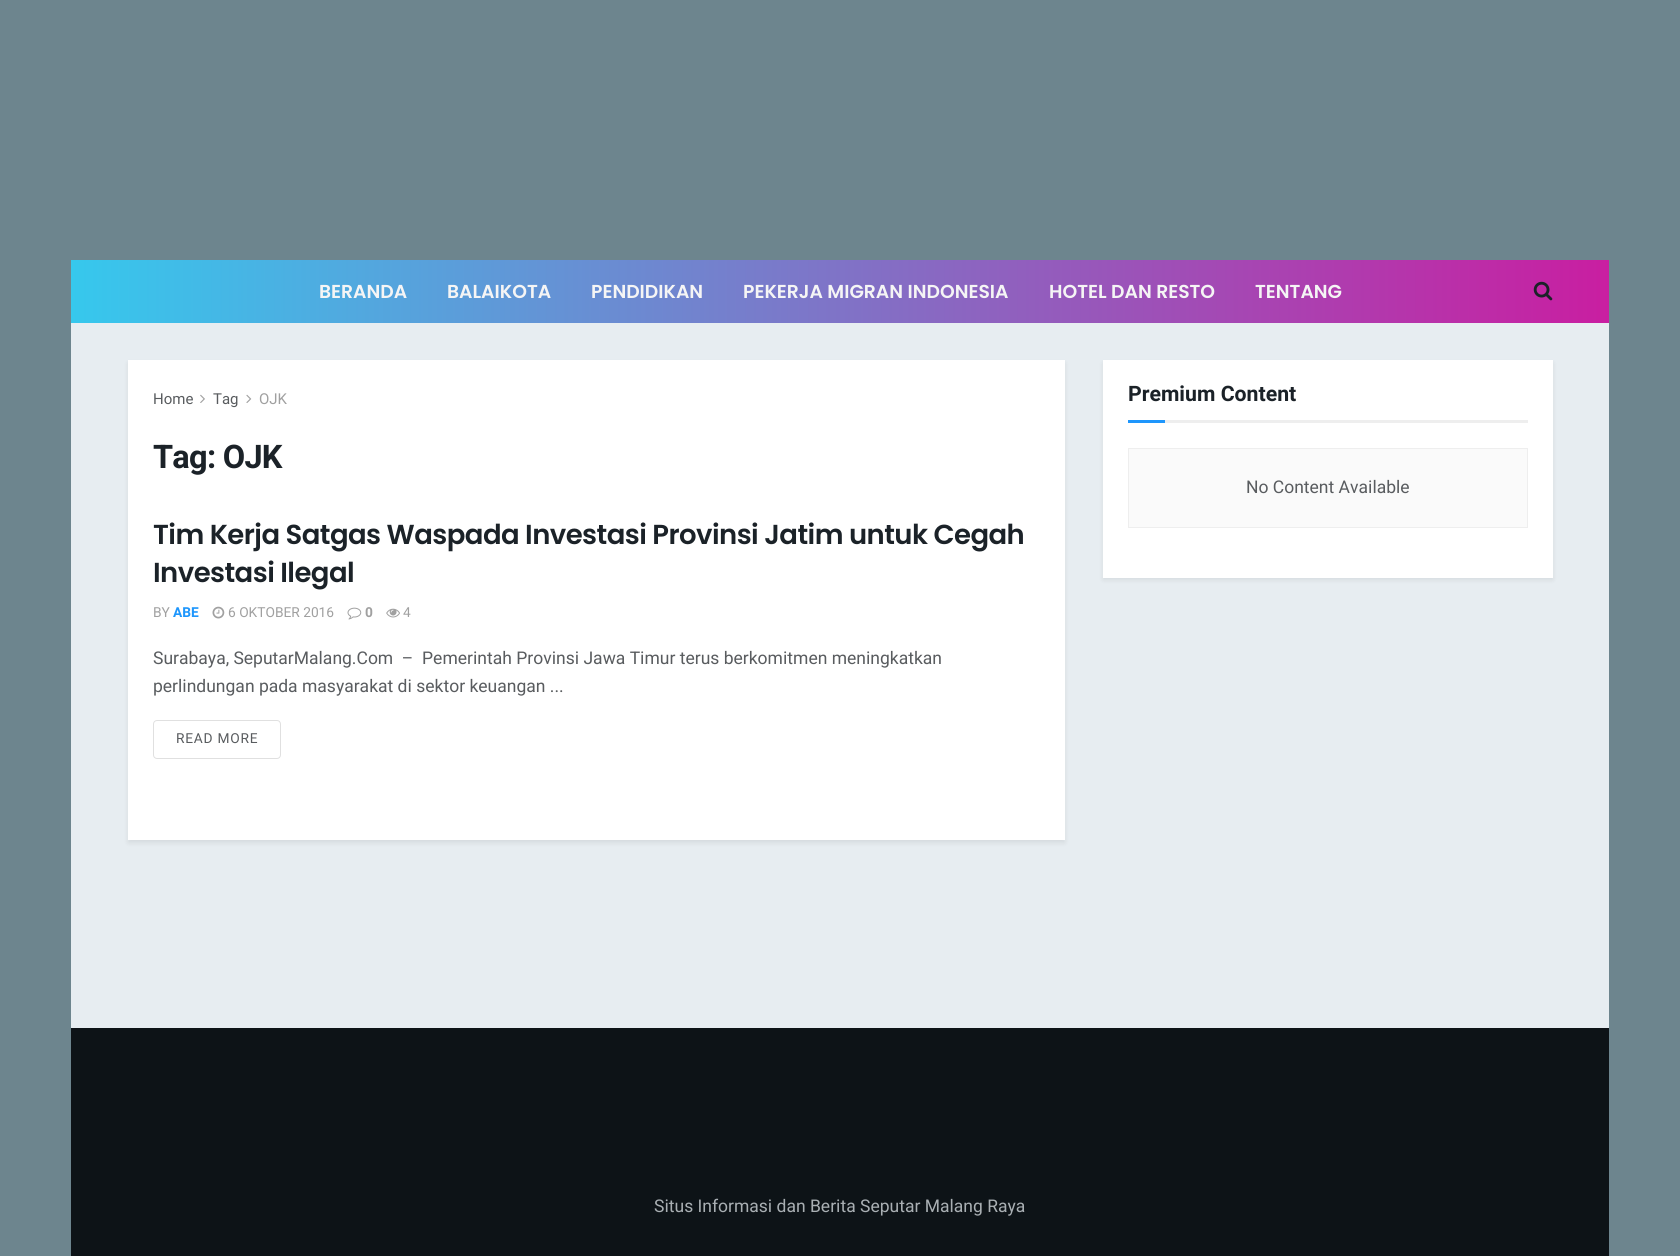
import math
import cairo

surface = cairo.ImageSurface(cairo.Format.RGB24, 1680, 1256)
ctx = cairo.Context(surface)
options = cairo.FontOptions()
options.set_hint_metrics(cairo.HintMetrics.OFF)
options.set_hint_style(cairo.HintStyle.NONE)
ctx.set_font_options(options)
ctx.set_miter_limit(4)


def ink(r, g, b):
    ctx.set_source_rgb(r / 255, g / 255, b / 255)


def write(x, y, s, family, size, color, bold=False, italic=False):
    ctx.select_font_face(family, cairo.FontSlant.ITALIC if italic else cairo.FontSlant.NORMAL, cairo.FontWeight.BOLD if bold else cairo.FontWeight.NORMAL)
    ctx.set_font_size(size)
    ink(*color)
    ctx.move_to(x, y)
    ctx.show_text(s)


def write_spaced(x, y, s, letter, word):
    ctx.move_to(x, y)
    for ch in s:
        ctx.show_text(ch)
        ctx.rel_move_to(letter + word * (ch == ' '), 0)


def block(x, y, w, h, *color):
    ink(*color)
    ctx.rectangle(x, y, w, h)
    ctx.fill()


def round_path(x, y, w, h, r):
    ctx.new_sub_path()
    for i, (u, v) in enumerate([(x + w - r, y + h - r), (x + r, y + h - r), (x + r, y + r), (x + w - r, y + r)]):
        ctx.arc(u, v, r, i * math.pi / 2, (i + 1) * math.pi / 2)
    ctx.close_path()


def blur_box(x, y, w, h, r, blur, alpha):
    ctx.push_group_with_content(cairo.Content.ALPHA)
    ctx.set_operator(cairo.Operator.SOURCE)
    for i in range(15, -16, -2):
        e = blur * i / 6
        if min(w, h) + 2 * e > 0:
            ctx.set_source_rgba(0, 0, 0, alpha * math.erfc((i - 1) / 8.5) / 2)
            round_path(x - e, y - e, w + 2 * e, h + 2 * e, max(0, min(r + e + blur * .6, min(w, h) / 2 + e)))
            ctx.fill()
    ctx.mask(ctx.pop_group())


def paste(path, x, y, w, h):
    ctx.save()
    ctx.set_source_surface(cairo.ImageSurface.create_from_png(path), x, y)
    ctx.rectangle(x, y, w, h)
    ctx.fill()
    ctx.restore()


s1 = dict(family="Poppins SemiBold", size=18.75, color=(245, 245, 245))
s2 = dict(family="Heebo", size=15, color=(89, 92, 95))
s3 = dict(family="Heebo", size=15, color=(160, 160, 160))
s4 = dict(family="Heebo", size=13.75, color=(160, 160, 160))
s5 = dict(family="Heebo", size=13.75, color=(30, 150, 252), bold=True)
s6 = dict(family="Heebo", size=13.75, color=(160, 160, 160), bold=True)
s7 = dict(family="Heebo", size=17.5, color=(89, 92, 95))
s8 = dict(family="Heebo", size=21.25, color=(27, 34, 40), bold=True)
s9 = dict(family="Heebo", size=17.5, color=(169, 175, 179))

ink(109, 133, 142)
ctx.paint()
gradient = cairo.LinearGradient(71, 291, 1609, 291)
gradient.add_color_stop_rgba(0, 0.212, 0.784, 0.929, 1)
gradient.add_color_stop_rgba(1, 0.788, 0.118, 0.631, 1)
ctx.set_source(gradient)
ctx.rectangle(71, 260, 1538, 63)
ctx.fill()
write(319, 298, "BERANDA", **s1)
write(447, 298, "BALAIKOTA", **s1)
write(591, 298, "PENDIDIKAN", **s1)
write(743, 298, "PEKERJA MIGRAN INDONESIA", **s1)
write(1049, 298, "HOTEL DAN RESTO", **s1)
write(1255, 298, "TENTANG", **s1)
paste("pic1.png", 1533, 281, 20, 20)
block(71, 323, 1538, 705, 231, 237, 241)
ink(0, 0, 0)
blur_box(128, 363, 937, 480, 0, 2.5, 0.08)
block(128, 360, 937, 480, 255, 255, 255)
write(153, 404, "Home", **s2)
paste("pic2.png", 200, 394, 5, 9)
write(213, 404, "Tag", **s2)
paste("pic3.png", 246, 394, 6, 9)
write(259, 404, "OJK", **s3)
ctx.select_font_face("Heebo", cairo.FontSlant.NORMAL, cairo.FontWeight.BOLD)
ctx.set_font_size(32.5)
ink(27, 34, 40)
write_spaced(153, 468, "Tag: OJK", -0.75, 0)
ctx.select_font_face("Poppins SemiBold")
ctx.set_font_size(27.5)
write_spaced(153, 544, "Tim Kerja Satgas Waspada Investasi Provinsi Jatim untuk Cegah", -0.55, 0)
write_spaced(153, 582, "Investasi Ilegal", -0.55, 0)
write(153, 617, "BY", **s4)
write(173, 617, "ABE", **s5)
paste("pic4.png", 212, 606, 13, 13)
write(228, 617, "6 OKTOBER 2016", **s4)
paste("pic5.png", 347, 607, 15, 13)
write(365, 617, "0", **s6)
paste("pic6.png", 386, 608, 14, 10)
write(403, 617, "4", **s4)
write(153, 664, "Surabaya, SeputarMalang.Com  –  Pemerintah Provinsi Jawa Timur terus berkomitmen meningkatkan", **s7)
write(153, 692, "perlindungan pada masyarakat di sektor keuangan ...", **s7)
round_path(153.5, 720.5, 127, 38, 3.5)
ink(224, 224, 224)
ctx.set_line_width(1)
ctx.stroke()
ctx.set_font_size(13.75)
ink(89, 92, 95)
write_spaced(176, 743, "READ MORE", 0.75, 0)
ink(0, 0, 0)
blur_box(1103, 363, 450, 217, 0, 2.5, 0.08)
block(1103, 360, 450, 218, 255, 255, 255)
block(1165, 420, 363, 3, 238, 238, 238)
write(1128, 401, "Premium Content", **s8)
block(1128, 420, 37, 3, 30, 150, 252)
ink(250, 250, 250)
ctx.rectangle(1128.5, 448.5, 399, 79)
ctx.fill_preserve()
ink(238, 238, 238)
ctx.stroke()
write(1246, 493, "No Content Available", **s7)
block(71, 1028, 1538, 228, 13, 19, 23)
write(654, 1212, "Situs Informasi dan Berita Seputar Malang Raya", **s9)
surface.write_to_png("screenshot.png")
